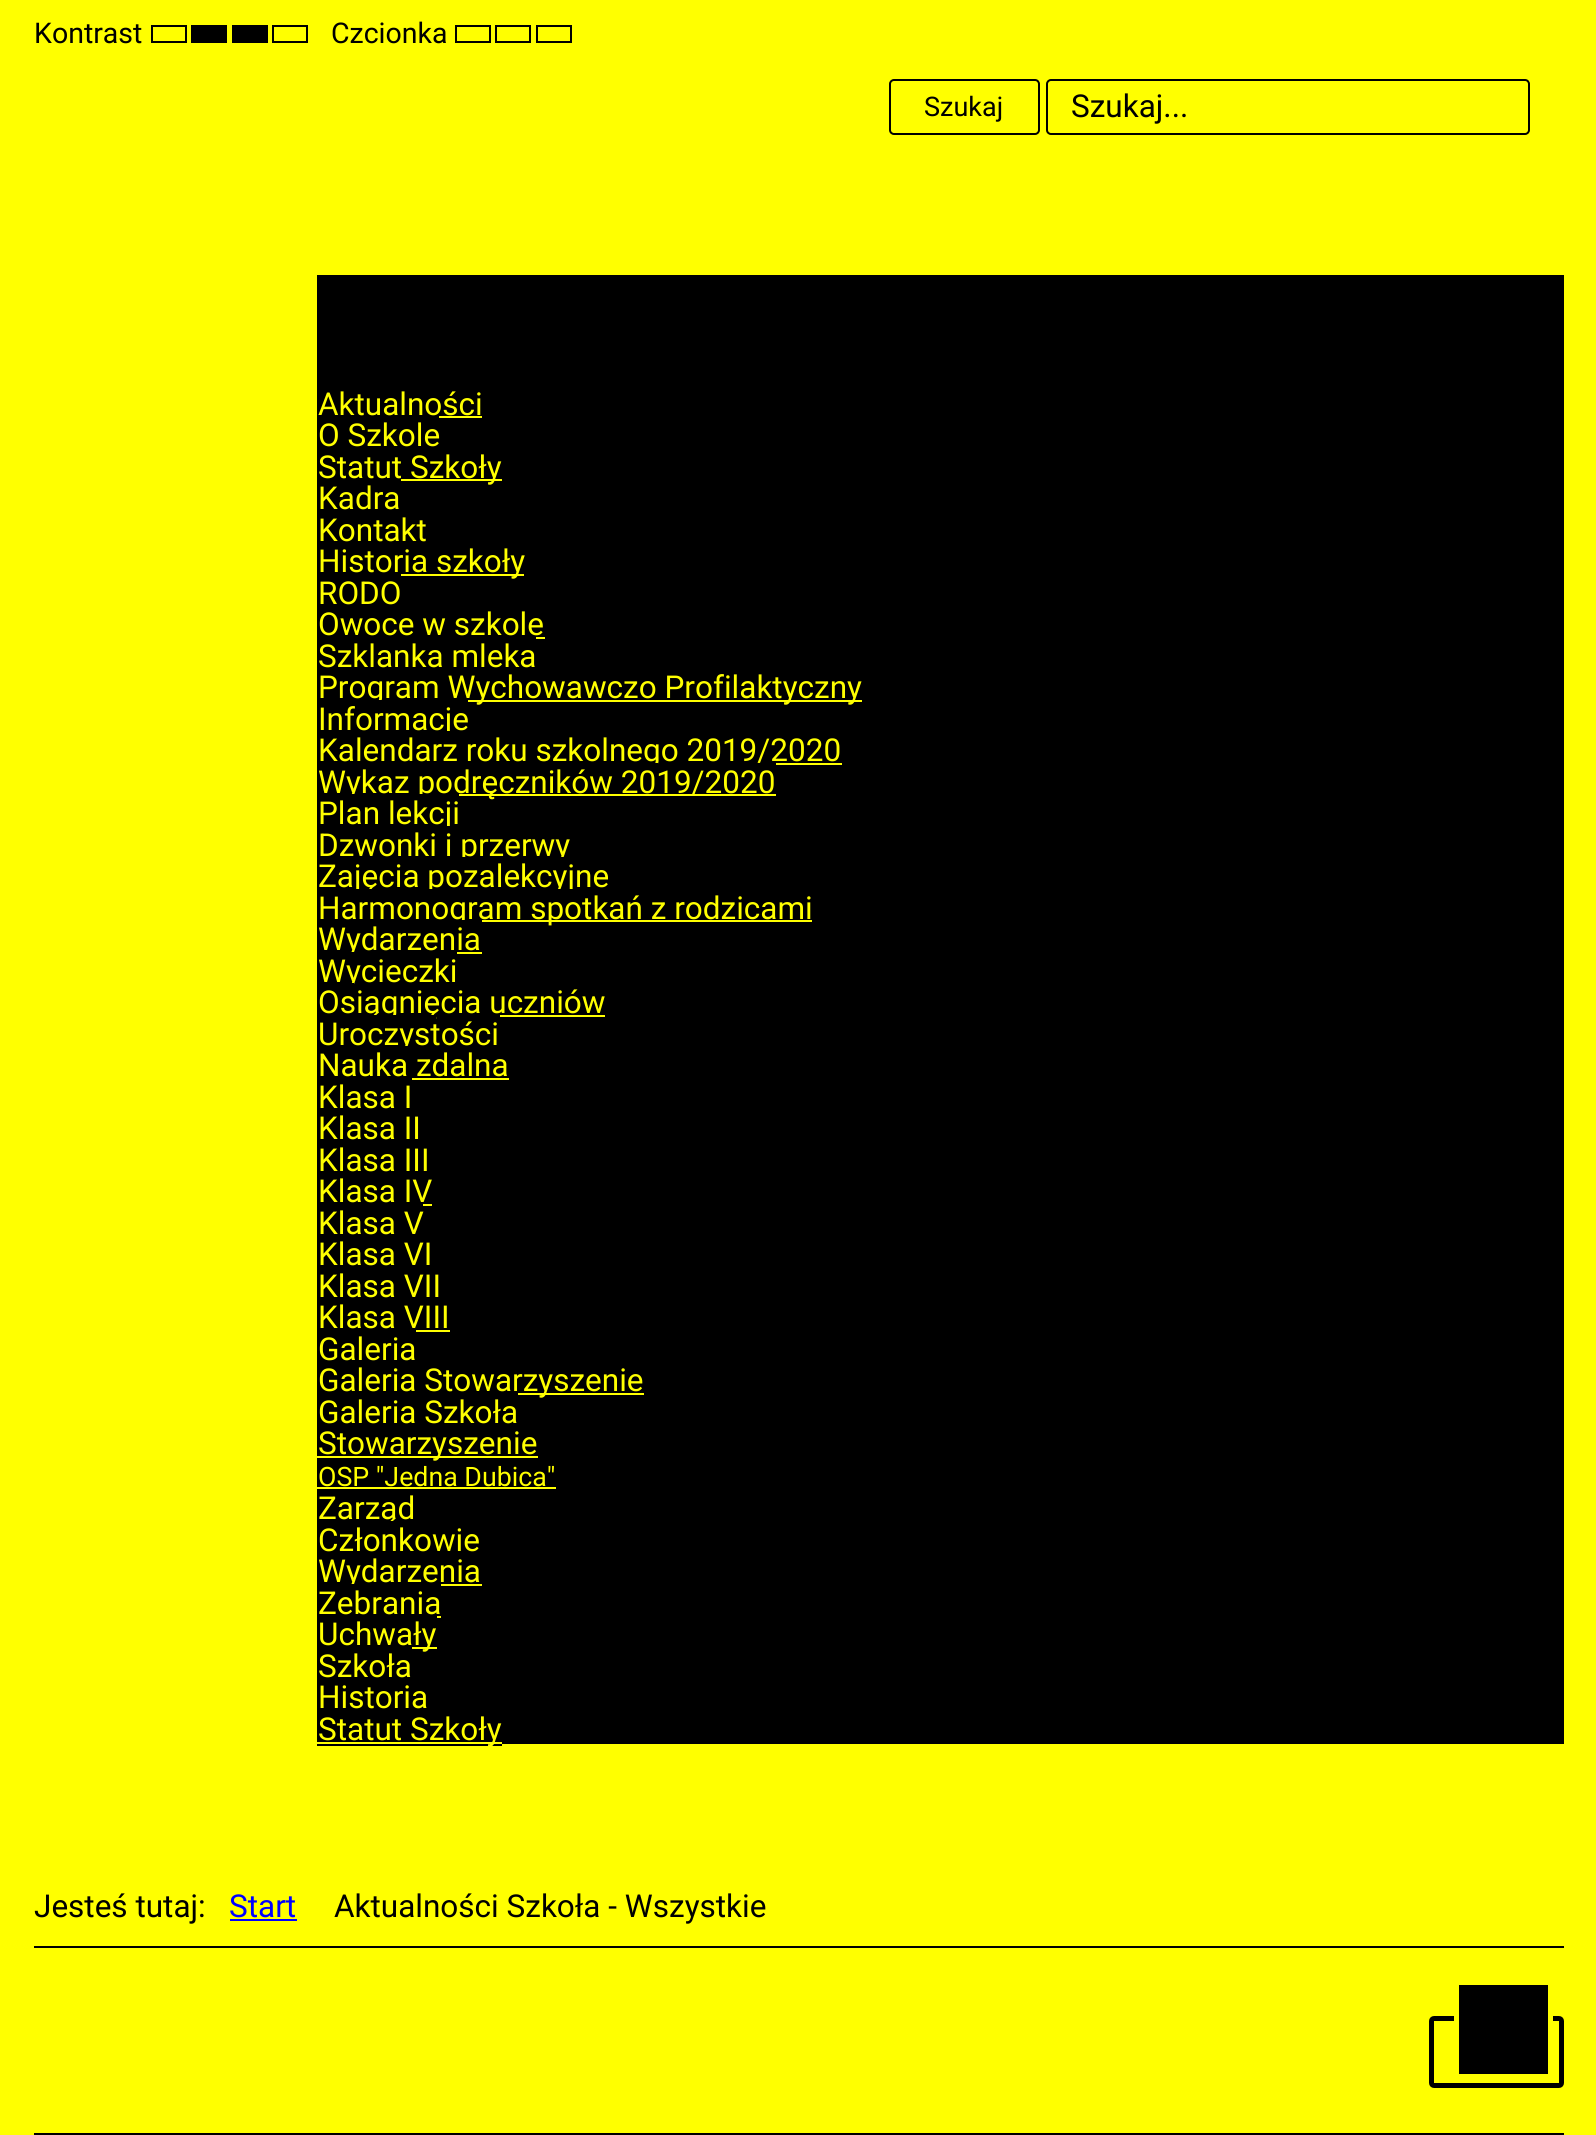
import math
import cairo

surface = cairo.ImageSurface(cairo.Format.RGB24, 1596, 2135)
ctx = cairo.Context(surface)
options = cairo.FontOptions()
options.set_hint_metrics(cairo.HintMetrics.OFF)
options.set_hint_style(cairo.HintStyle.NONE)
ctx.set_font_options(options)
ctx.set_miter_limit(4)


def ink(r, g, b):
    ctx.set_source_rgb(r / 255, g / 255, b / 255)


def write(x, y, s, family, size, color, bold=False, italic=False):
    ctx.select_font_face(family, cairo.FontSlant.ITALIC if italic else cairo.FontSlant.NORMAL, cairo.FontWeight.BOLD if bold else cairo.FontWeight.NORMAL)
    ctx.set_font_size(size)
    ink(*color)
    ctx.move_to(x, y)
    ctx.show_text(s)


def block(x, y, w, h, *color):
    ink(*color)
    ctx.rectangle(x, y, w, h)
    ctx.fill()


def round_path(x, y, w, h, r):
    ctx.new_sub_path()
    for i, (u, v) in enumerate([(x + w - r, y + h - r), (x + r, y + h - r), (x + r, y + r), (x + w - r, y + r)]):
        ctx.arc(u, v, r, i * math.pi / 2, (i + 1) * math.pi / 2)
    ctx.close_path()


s1 = dict(family="Roboto", size=28.5, color=(0, 0, 0))
s2 = dict(family="Roboto", size=27, color=(0, 0, 0))
s3 = dict(family="Roboto", size=31.5, color=(0, 0, 0))
s4 = dict(family="Roboto", size=31.5, color=(255, 255, 0))
s5 = dict(family="Roboto", size=26.75, color=(255, 255, 0))
s6 = dict(family="Roboto", size=31.5, color=(0, 0, 255))

ink(255, 255, 0)
ctx.paint()
write(34, 43, "Kontrast", **s1)
ctx.rectangle(152, 26, 34, 16)
ctx.stroke()
block(191, 25, 36, 18, 0, 0, 0)
block(232, 25, 36, 18, 0, 0, 0)
ctx.rectangle(273, 26, 34, 16)
ctx.stroke()
write(331, 43, "Czcionka", **s1)
ctx.rectangle(456, 26, 34, 16)
ctx.stroke()
ctx.rectangle(496, 26, 34, 16)
ctx.stroke()
ctx.rectangle(537, 26, 34, 16)
ctx.stroke()
round_path(890, 80, 149, 54, 4)
ctx.stroke()
write(924, 116, "Szukaj", **s2)
round_path(1047, 80, 482, 54, 4)
ctx.stroke()
write(1071, 117, "Szukaj...", **s3)
block(317, 275, 1247, 1469, 0, 0, 0)
write(318, 415, "Aktualności", **s4)
block(439, 416, 43, 2, 255, 255, 0)
write(318, 446, "O Szkole", **s4)
block(401, 479, 101, 2, 255, 255, 0)
write(318, 478, "Statut Szkoły", **s4)
write(318, 509, "Kadra", **s4)
write(318, 541, "Kontakt", **s4)
block(401, 574, 123, 2, 255, 255, 0)
write(318, 572, "Historia szkoły", **s4)
write(318, 604, "RODO", **s4)
write(318, 635, "Owoce w szkole", **s4)
block(536, 637, 9, 2, 255, 255, 0)
write(318, 667, "Szklanka mleka", **s4)
block(468, 700, 394, 2, 255, 255, 0)
write(318, 698, "Program Wychowawczo Profilaktyczny", **s4)
write(318, 730, "Informacje", **s4)
block(368, 700, 14, 5, 0, 0, 0)
block(776, 763, 66, 2, 255, 255, 0)
write(318, 761, "Kalendarz roku szkolnego 2019/2020", **s4)
block(443, 731, 7, 6, 0, 0, 0)
block(459, 794, 317, 2, 255, 255, 0)
write(318, 793, "Wykaz podręczników 2019/2020", **s4)
block(645, 763, 13, 5, 0, 0, 0)
write(318, 824, "Plan lekcji", **s4)
block(346, 794, 77, 6, 0, 0, 0)
write(318, 856, "Dzwonki i przerwy", **s4)
block(443, 826, 7, 5, 0, 0, 0)
write(318, 887, "Zajęcia pozalekcyjne", **s4)
block(462, 857, 102, 6, 0, 0, 0)
block(482, 920, 330, 2, 255, 255, 0)
write(318, 919, "Harmonogram spotkań z rodzicami", **s4)
block(352, 889, 221, 5, 0, 0, 0)
block(457, 952, 25, 2, 255, 255, 0)
write(318, 950, "Wydarzenia", **s4)
block(451, 920, 14, 6, 0, 0, 0)
write(318, 982, "Wycieczki", **s4)
block(346, 952, 8, 5, 0, 0, 0)
block(500, 1015, 105, 2, 255, 255, 0)
write(318, 1013, "Osiągnięcia uczniów", **s4)
block(346, 983, 8, 6, 0, 0, 0)
write(318, 1045, "Uroczystości", **s4)
block(373, 1015, 63, 5, 0, 0, 0)
write(318, 1076, "Nauka zdalna", **s4)
block(400, 1046, 8, 6, 0, 0, 0)
block(412, 1078, 97, 2, 255, 255, 0)
write(318, 1108, "Klasa I", **s4)
write(318, 1139, "Klasa II", **s4)
write(318, 1171, "Klasa III", **s4)
write(318, 1202, "Klasa IV", **s4)
block(423, 1204, 9, 2, 255, 255, 0)
write(318, 1234, "Klasa V", **s4)
write(318, 1265, "Klasa VI", **s4)
write(318, 1297, "Klasa VII", **s4)
write(318, 1328, "Klasa VIII", **s4)
block(416, 1330, 34, 2, 255, 255, 0)
write(318, 1360, "Galeria", **s4)
block(518, 1393, 126, 2, 255, 255, 0)
write(318, 1391, "Galeria Stowarzyszenie", **s4)
write(318, 1423, "Galeria Szkoła", **s4)
block(317, 1456, 221, 2, 255, 255, 0)
write(318, 1454, "Stowarzyszenie", **s4)
write(318, 1486, "OSP \"Jedna Dubica\"", **s5)
block(317, 1487, 239, 2, 255, 255, 0)
write(318, 1519, "Zarząd", **s4)
write(318, 1551, "Członkowie", **s4)
block(389, 1521, 7, 5, 0, 0, 0)
block(441, 1584, 41, 2, 255, 255, 0)
write(318, 1582, "Wydarzenia", **s4)
write(318, 1614, "Zebrania", **s4)
block(346, 1584, 8, 5, 0, 0, 0)
block(437, 1616, 4, 2, 255, 255, 0)
block(412, 1647, 25, 2, 255, 255, 0)
write(318, 1645, "Uchwały", **s4)
write(318, 1677, "Szkoła", **s4)
write(318, 1708, "Historia", **s4)
block(317, 1744, 185, 2, 0, 0, 0)
block(317, 1742, 185, 2, 255, 255, 0)
write(318, 1740, "Statut Szkoły", **s4)
block(34, 1946, 1530, 2, 0, 0, 0)
write(34, 1917, "Jesteś tutaj:", **s3)
write(229, 1917, "Start", **s6)
block(230, 1919, 67, 2, 0, 0, 255)
write(334, 1917, "Aktualności Szkoła - Wszystkie", **s3)
round_path(1431.5, 2018.5, 130, 67, 2.5)
ctx.set_line_width(5)
ctx.stroke()
block(34, 2133, 1530, 2, 0, 0, 0)
ctx.rectangle(1456.5, 1982.5, 94, 94)
ctx.fill_preserve()
ink(255, 255, 0)
ctx.stroke()
surface.write_to_png("screenshot.png")
